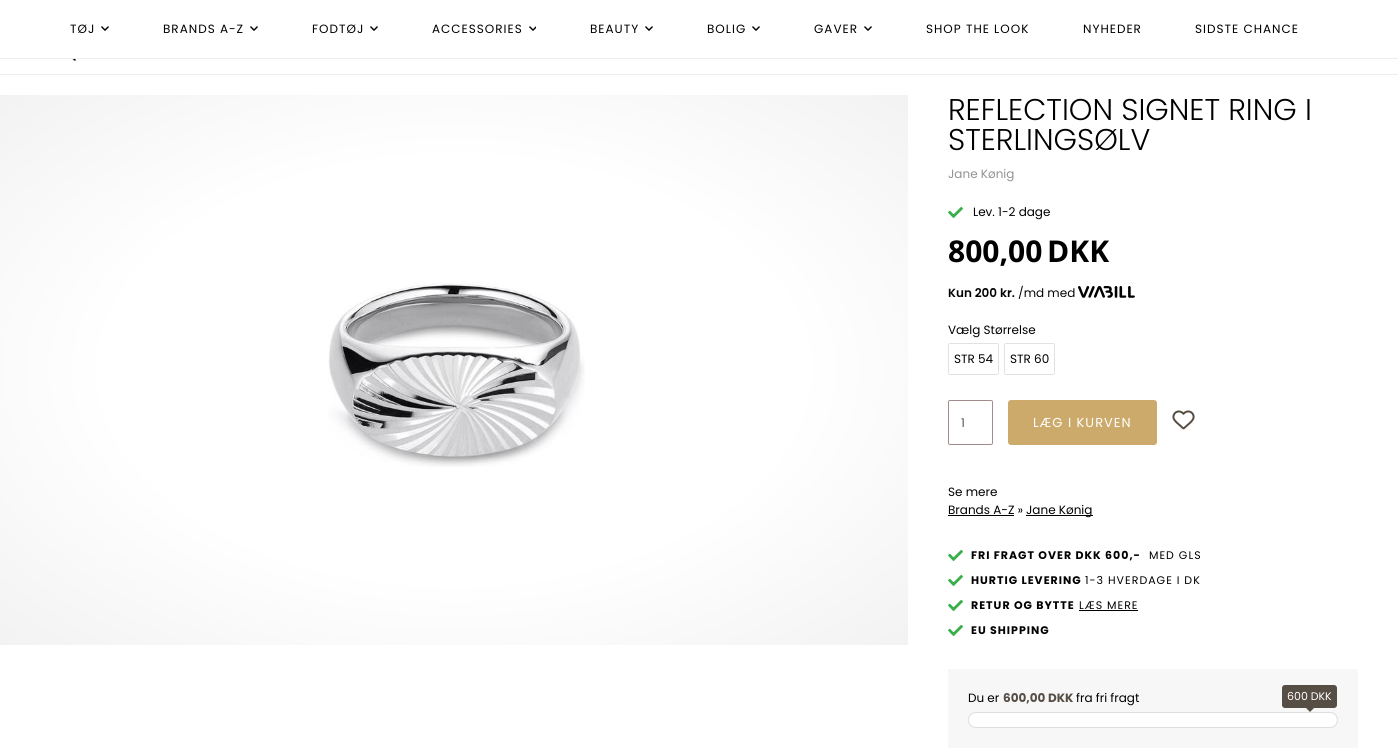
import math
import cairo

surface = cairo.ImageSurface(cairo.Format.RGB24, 1398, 750)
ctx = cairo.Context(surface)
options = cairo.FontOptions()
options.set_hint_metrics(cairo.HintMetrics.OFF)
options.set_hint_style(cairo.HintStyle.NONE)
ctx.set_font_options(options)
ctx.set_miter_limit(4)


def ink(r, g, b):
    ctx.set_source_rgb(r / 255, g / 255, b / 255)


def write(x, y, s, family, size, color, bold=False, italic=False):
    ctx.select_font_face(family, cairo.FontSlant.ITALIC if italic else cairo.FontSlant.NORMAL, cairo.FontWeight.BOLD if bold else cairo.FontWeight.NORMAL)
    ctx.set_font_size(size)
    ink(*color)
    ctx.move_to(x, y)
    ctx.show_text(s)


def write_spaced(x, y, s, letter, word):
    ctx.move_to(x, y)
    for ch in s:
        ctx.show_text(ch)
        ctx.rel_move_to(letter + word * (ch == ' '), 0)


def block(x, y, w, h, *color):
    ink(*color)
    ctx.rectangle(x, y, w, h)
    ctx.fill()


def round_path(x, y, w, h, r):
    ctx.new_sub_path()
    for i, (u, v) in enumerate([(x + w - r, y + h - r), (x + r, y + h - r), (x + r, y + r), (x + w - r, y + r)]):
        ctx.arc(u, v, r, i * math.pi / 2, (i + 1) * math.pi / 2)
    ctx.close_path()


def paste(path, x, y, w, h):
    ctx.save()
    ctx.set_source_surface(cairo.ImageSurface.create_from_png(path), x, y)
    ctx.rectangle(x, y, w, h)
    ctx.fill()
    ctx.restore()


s1 = dict(family="Poppins Light", size=30, color=(0, 0, 0))
s2 = dict(family="Poppins", size=12, color=(146, 146, 146))
s3 = dict(family="Poppins", size=12, color=(0, 0, 0))
s4 = dict(family="Open Sans", size=30, color=(0, 0, 0), bold=True)
s5 = dict(family="Poppins", size=12, color=(84, 84, 84))
s6 = dict(family="Poppins", size=12, color=(86, 77, 68), bold=True)
s7 = dict(family="Poppins", size=11, color=(255, 255, 255))

ink(255, 255, 255)
ctx.paint()
block(0, 58, 1398, 1, 238, 238, 238)
ctx.select_font_face("Poppins")
ctx.set_font_size(12)
ink(0, 0, 0)
write_spaced(70, 33, "TØJ", 1, 0)
paste("pic1.png", 101, 26, 8, 5)
write_spaced(163, 33, "BRANDS A-Z", 1, 0)
paste("pic1.png", 250, 26, 8, 5)
write_spaced(312, 33, "FODTØJ", 1, 0)
paste("pic1.png", 370, 26, 8, 5)
write_spaced(432, 33, "ACCESSORIES", 1, 0)
paste("pic2.png", 529, 26, 7, 5)
write_spaced(590, 33, "BEAUTY", 1, 0)
paste("pic1.png", 645, 26, 8, 5)
write_spaced(707, 33, "BOLIG", 1, 0)
paste("pic1.png", 752, 26, 8, 5)
write_spaced(814, 33, "GAVER", 1, 0)
paste("pic1.png", 864, 26, 8, 5)
write_spaced(926, 33, "SHOP THE LOOK", 1, 0)
write_spaced(1083, 33, "NYHEDER", 1, 0)
write_spaced(1195, 33, "SIDSTE CHANCE", 1, 0)
block(0, 74, 1398, 1, 238, 238, 238)
paste("pic3.png", 72, 59, 4, 2)
paste("pic4.png", 328, 282, 257, 185)
gradient = cairo.RadialGradient(0, 0, 0, 0, 0, 1)
gradient.set_matrix(cairo.Matrix(1 / 642, 0, 0, 1 / 389, -1 * 454 / 642, -1 * 370 / 389))
gradient.add_color_stop_rgba(0.54, 0, 0, 0, 0)
gradient.add_color_stop_rgba(1, 0, 0, 0, 0.05)
ctx.set_source(gradient)
ctx.rectangle(0, 95, 908, 550)
ctx.fill()
write(948, 120, "REFLECTION SIGNET RING I", **s1)
write(948, 150, "STERLINGSØLV", **s1)
write(948, 178, "Jane Kønig", **s2)
paste("pic5.png", 948, 206, 15, 12)
write(973, 216, "Lev. 1-2 dage", **s3)
write(948, 262, "800,00", **s4)
write(1047, 262, "DKK", **s4)
paste("pic6.png", 948, 285, 187, 14)
write(948, 334, "Vælg Størrelse", **s3)
round_path(948.5, 343.5, 50, 31, 1.5)
ink(226, 226, 226)
ctx.set_line_width(1)
ctx.stroke()
write(954, 363, "STR 54", **s3)
round_path(1004.5, 343.5, 50, 31, 1.5)
ink(226, 226, 226)
ctx.stroke()
write(1010, 363, "STR 60", **s3)
round_path(948.5, 400.5, 44, 44, 1.5)
ink(165, 140, 140)
ctx.stroke()
write(961, 427, "1", **s5)
ink(204, 170, 107)
round_path(1008, 400, 149, 45, 3)
ctx.fill()
ctx.set_font_size(13)
ink(255, 255, 255)
write_spaced(1033, 427, "LÆG I KURVEN", 1, 0)
paste("pic7.png", 1172, 410, 23, 20)
write(948, 496, "Se mere", **s3)
write(948, 514, "Brands A-Z »", **s3)
block(948, 515, 66, 1, 0, 0, 0)
block(1026, 515, 67, 1, 0, 0, 0)
write(1026, 514, "Jane Kønig", **s3)
paste("pic5.png", 948, 549, 15, 12)
ctx.select_font_face("Poppins", cairo.FontSlant.NORMAL, cairo.FontWeight.BOLD)
ctx.set_font_size(11)
write_spaced(971, 559, "FRI FRAGT OVER DKK 600,-", 1, 0)
ctx.select_font_face("Poppins")
write_spaced(1149, 559, "MED GLS", 1, 0)
paste("pic5.png", 948, 574, 15, 12)
ctx.select_font_face("Poppins", cairo.FontSlant.NORMAL, cairo.FontWeight.BOLD)
write_spaced(971, 584, "HURTIG LEVERING", 1, 0)
ctx.select_font_face("Poppins")
write_spaced(1085, 584, "1-3 HVERDAGE I DK", 1, 0)
paste("pic5.png", 948, 599, 15, 12)
ctx.select_font_face("Poppins", cairo.FontSlant.NORMAL, cairo.FontWeight.BOLD)
write_spaced(971, 609, "RETUR OG BYTTE", 1, 0)
ctx.select_font_face("Poppins")
write_spaced(1079, 609, "LÆS MERE", 1, 0)
block(1079, 610, 59, 1, 0, 0, 0)
paste("pic5.png", 948, 624, 15, 12)
ctx.select_font_face("Poppins", cairo.FontSlant.NORMAL, cairo.FontWeight.BOLD)
write_spaced(971, 634, "EU SHIPPING", 1, 0)
block(948, 669, 410, 79, 247, 247, 247)
write(968, 702, "Du er", **s3)
write(1003, 702, "600,00 DKK", **s6)
write(1076, 702, "fra fri fragt", **s3)
ink(255, 255, 255)
round_path(968.5, 712.5, 369, 15, 7.5)
ctx.fill_preserve()
ink(221, 221, 221)
ctx.stroke()
ink(86, 77, 68)
round_path(1282, 685, 55, 23, 3)
ctx.fill()
write(1287, 700, "600 DKK", **s7)
ink(86, 77, 68)
ctx.new_path()
ctx.move_to(1306, 708)
ctx.line_to(1314, 708)
ctx.line_to(1310, 712)
ctx.close_path()
ctx.fill()
surface.write_to_png("screenshot.png")
